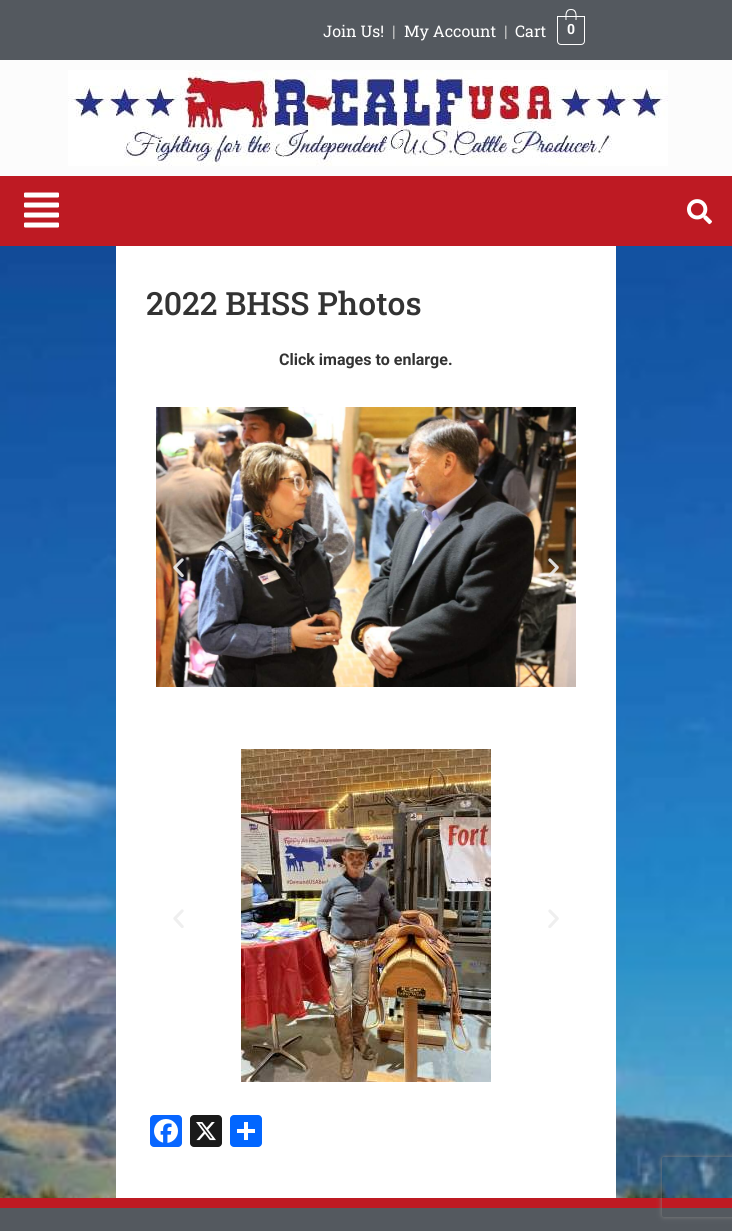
import math
import cairo

surface = cairo.ImageSurface(cairo.Format.RGB24, 732, 1231)
ctx = cairo.Context(surface)
options = cairo.FontOptions()
options.set_hint_metrics(cairo.HintMetrics.OFF)
options.set_hint_style(cairo.HintStyle.NONE)
ctx.set_font_options(options)
ctx.set_miter_limit(4)


def ink(r, g, b):
    ctx.set_source_rgb(r / 255, g / 255, b / 255)


def write(x, y, s, family, size, color, bold=False, italic=False):
    ctx.select_font_face(family, cairo.FontSlant.ITALIC if italic else cairo.FontSlant.NORMAL, cairo.FontWeight.BOLD if bold else cairo.FontWeight.NORMAL)
    ctx.set_font_size(size)
    ink(*color)
    ctx.move_to(x, y)
    ctx.show_text(s)


def block(x, y, w, h, *color):
    ink(*color)
    ctx.rectangle(x, y, w, h)
    ctx.fill()


def round_path(x, y, w, h, r):
    ctx.new_sub_path()
    for i, (u, v) in enumerate([(x + w - r, y + h - r), (x + r, y + h - r), (x + r, y + r), (x + w - r, y + r)]):
        ctx.arc(u, v, r, i * math.pi / 2, (i + 1) * math.pi / 2)
    ctx.close_path()


def blur_box(x, y, w, h, r, blur, alpha):
    ctx.push_group_with_content(cairo.Content.ALPHA)
    ctx.set_operator(cairo.Operator.SOURCE)
    for i in range(15, -16, -2):
        e = blur * i / 6
        if min(w, h) + 2 * e > 0:
            ctx.set_source_rgba(0, 0, 0, alpha * math.erfc((i - 1) / 8.5) / 2)
            round_path(x - e, y - e, w + 2 * e, h + 2 * e, max(0, min(r + e + blur * .6, min(w, h) / 2 + e)))
            ctx.fill()
    ctx.mask(ctx.pop_group())


def paste(path, x, y, w, h):
    ctx.save()
    ctx.set_source_surface(cairo.ImageSurface.create_from_png(path), x, y)
    ctx.rectangle(x, y, w, h)
    ctx.fill()
    ctx.restore()


s1 = dict(family="Roboto Slab", size=16, color=(255, 255, 255))
s2 = dict(family="Roboto Slab", size=16, color=(204, 204, 204))
s3 = dict(family="Roboto", size=14, color=(255, 255, 255), bold=True)
s4 = dict(family="Roboto Slab Medium", size=32, color=(51, 51, 51))
s5 = dict(family="Roboto", size=16, color=(51, 51, 51), bold=True)

ink(255, 255, 255)
ctx.paint()
paste("pic1.png", 0, 246, 732, 952)
block(0, 0, 732, 60, 84, 89, 95)
write(323, 37, "Join Us!", **s1)
write(392, 37, "|", **s2)
write(404, 37, "My Account", **s1)
write(504, 37, "|", **s2)
write(515, 37, "Cart", **s1)
ctx.new_path()
ctx.move_to(557.5, 16.5)
ctx.line_to(584.5, 16.5)
ctx.line_to(584.5, 41)
ctx.curve_to(584.5, 43, 583, 44.5, 581, 44.5)
ctx.line_to(561, 44.5)
ctx.curve_to(559, 44.5, 557.5, 43, 557.5, 41)
ctx.close_path()
ctx.set_line_width(1)
ctx.stroke()
ctx.set_fill_rule(cairo.FillRule.EVEN_ODD)
ctx.new_path()
ctx.move_to(571, 9)
ctx.curve_to(577.5, 9, 576.5, 15.5, 576.5, 20)
ctx.line_to(565.5, 20)
ctx.curve_to(565.5, 15.5, 564.5, 9, 571, 9)
ctx.close_path()
ctx.move_to(571, 10)
ctx.curve_to(576.5, 10, 575.5, 16.5, 575.5, 20)
ctx.line_to(566.5, 20)
ctx.curve_to(566.5, 16.5, 565.5, 10, 571, 10)
ctx.close_path()
ctx.fill()
write(567, 34, "0", **s3)
block(0, 60, 732, 116, 252, 252, 252)
paste("pic2.png", 68, 70, 600, 96)
block(0, 176, 732, 70, 190, 26, 35)
paste("pic3.png", 24, 192, 35, 36)
paste("pic4.png", 687, 199, 25, 26)
block(116, 246, 500, 952, 255, 255, 255)
write(146, 315, "2022 BHSS Photos", **s4)
write(279, 365, "Click images to enlarge.", **s5)
paste("pic5.png", 156, 407, 420, 280)
paste("pic6.png", 173, 558, 11, 20)
paste("pic7.png", 548, 558, 11, 20)
paste("pic8.png", 173, 909, 11, 19)
paste("pic9.png", 241, 749, 250, 333)
paste("pic10.png", 548, 909, 11, 19)
ink(8, 102, 255)
round_path(150, 1115, 32, 32, 4)
ctx.fill()
paste("pic11.png", 154, 1119, 24, 24)
ink(26, 26, 26)
round_path(190, 1115, 32, 32, 4)
ctx.fill()
paste("pic12.png", 196, 1122, 20, 19)
ink(1, 102, 255)
round_path(230, 1115, 32, 32, 4)
ctx.fill()
block(244, 1122, 4, 18, 255, 255, 255)
block(237, 1129, 18, 4, 255, 255, 255)
block(0, 1208, 732, 23, 84, 89, 95)
block(0, 1198, 732, 10, 190, 26, 35)
ctx.save()
ctx.new_path()
ctx.move_to(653, 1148)
ctx.line_to(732, 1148)
ctx.line_to(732, 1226)
ctx.line_to(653, 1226)
ctx.close_path()
ctx.move_to(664, 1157)
ctx.line_to(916, 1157)
ctx.curve_to(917, 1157, 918, 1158, 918, 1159)
ctx.line_to(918, 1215)
ctx.curve_to(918, 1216, 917, 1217, 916, 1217)
ctx.line_to(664, 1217)
ctx.curve_to(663, 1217, 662, 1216, 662, 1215)
ctx.line_to(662, 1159)
ctx.curve_to(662, 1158, 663, 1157, 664, 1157)
ctx.close_path()
ctx.clip()
ink(128, 128, 128)
blur_box(662, 1157, 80, 60, 2, 2.5, 1)
ctx.restore()
surface.write_to_png("screenshot.png")
